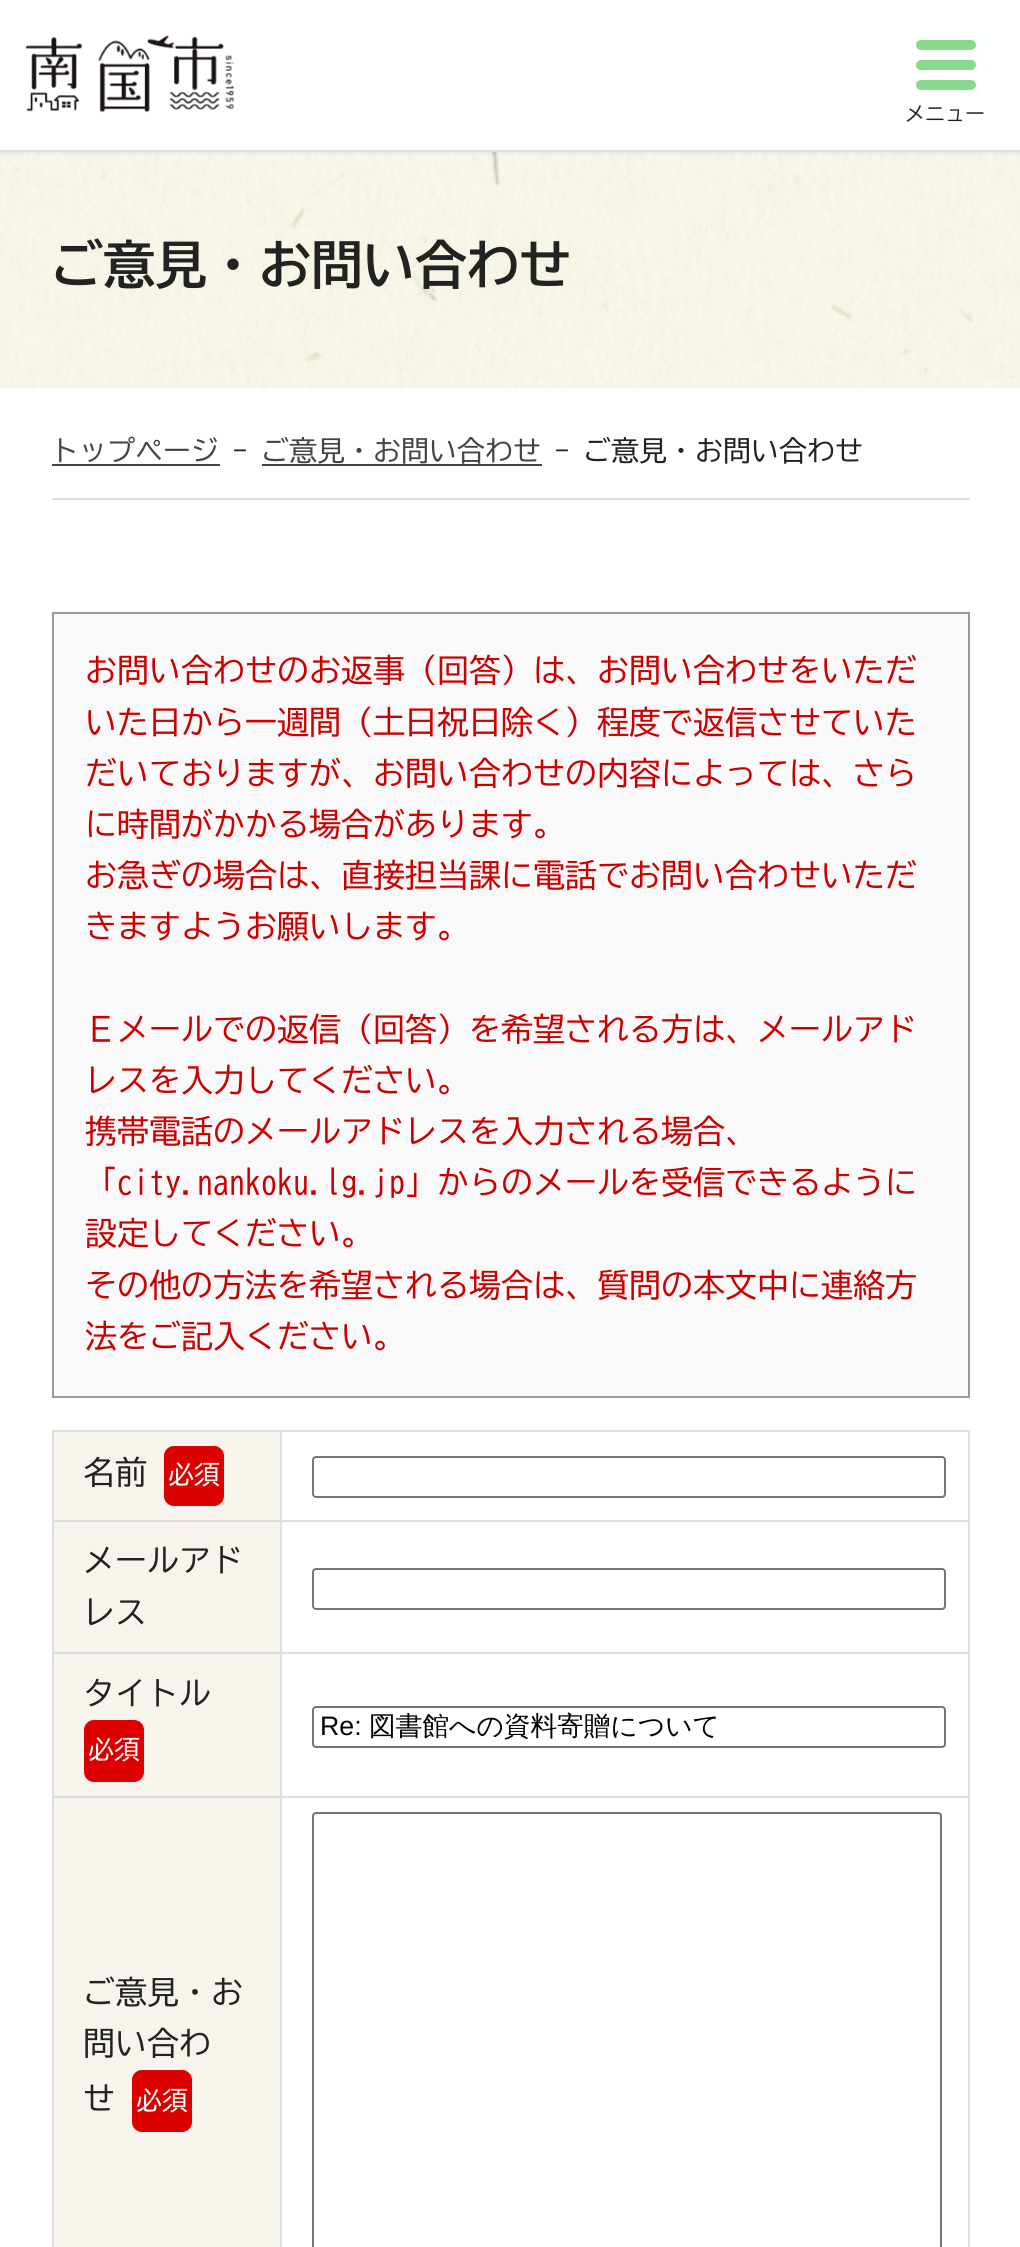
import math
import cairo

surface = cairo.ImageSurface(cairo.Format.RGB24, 1020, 2247)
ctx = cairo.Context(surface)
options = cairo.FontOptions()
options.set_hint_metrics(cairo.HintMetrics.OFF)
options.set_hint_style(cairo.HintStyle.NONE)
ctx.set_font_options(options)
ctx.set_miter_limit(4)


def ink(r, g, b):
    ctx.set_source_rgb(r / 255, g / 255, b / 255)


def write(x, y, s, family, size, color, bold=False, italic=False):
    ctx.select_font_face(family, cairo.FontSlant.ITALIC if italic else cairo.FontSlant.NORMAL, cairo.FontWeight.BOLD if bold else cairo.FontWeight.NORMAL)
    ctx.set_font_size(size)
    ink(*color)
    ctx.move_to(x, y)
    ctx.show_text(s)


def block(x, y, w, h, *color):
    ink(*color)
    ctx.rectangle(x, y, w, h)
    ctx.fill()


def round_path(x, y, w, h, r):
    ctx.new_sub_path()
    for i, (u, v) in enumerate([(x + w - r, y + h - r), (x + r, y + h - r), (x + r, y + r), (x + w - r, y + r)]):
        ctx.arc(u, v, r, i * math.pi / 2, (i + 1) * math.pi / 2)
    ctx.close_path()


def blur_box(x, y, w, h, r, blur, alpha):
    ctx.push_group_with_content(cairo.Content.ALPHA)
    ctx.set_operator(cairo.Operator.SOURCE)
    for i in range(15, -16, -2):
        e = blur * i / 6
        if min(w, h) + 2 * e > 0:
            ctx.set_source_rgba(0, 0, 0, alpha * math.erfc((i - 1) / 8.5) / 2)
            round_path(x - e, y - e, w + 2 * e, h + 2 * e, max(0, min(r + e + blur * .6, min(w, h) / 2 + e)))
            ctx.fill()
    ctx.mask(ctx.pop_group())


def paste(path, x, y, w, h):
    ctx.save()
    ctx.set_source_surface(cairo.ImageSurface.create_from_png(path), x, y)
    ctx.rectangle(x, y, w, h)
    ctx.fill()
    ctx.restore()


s1 = dict(family="BIZ UDGothic", size=20, color=(34, 34, 34))
s2 = dict(family="BIZ UDGothic", size=52, color=(34, 34, 34), bold=True)
s3 = dict(family="BIZ UDGothic", size=28, color=(68, 68, 68))
s4 = dict(family="BIZ UDGothic", size=28, color=(34, 34, 34))
s5 = dict(family="BIZ UDGothic", size=32, color=(204, 0, 0))
s6 = dict(family="BIZ UDGothic", size=32, color=(34, 34, 34))
s7 = dict(family="BIZ UDGothic", size=26, color=(255, 255, 255))
s8 = dict(family="Liberation Sans", size=26.7, color=(0, 0, 0))
s9 = dict(family="WenQuanYi Zen Hei Medium", size=26.7, color=(0, 0, 0))

ink(255, 255, 255)
ctx.paint()
paste("pic2.png", 0, 152, 1020, 236)
ctx.save()
ctx.rectangle(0, 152, 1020, 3)
ctx.clip()
ink(0, 0, 0)
blur_box(0, 0, 1020, 152, 0, 3, 0.1)
ctx.restore()
block(0, 150, 1020, 2, 221, 221, 221)
paste("pic1.png", 25, 35, 209, 78)
ink(137, 217, 140)
round_path(916, 40, 60, 10, 5)
ctx.fill()
round_path(916, 60, 60, 10, 5)
ctx.fill()
round_path(916, 80, 60, 10, 5)
ctx.fill()
write(905, 121, "メニュー", **s1)
write(51, 284, "ご意見・お問い合わせ", **s2)
block(52, 498, 918, 2, 221, 221, 221)
write(51, 461, "トップページ", **s3)
block(52, 464, 168, 2, 68, 68, 68)
write(233, 461, "-", **s4)
write(261, 461, "ご意見・お問い合わせ", **s3)
block(262, 464, 280, 2, 68, 68, 68)
write(555, 461, "- ご意見・お問い合わせ", **s4)
ink(249, 249, 249)
ctx.rectangle(53, 613, 916, 784)
ctx.fill_preserve()
ink(153, 153, 153)
ctx.stroke()
write(85, 682, "お問い合わせのお返事（回答）は、お問い合わせをいただ", **s5)
write(85, 734, "いた日から一週間（土日祝日除く）程度で返信させていた", **s5)
write(85, 785, "だいておりますが、お問い合わせの内容によっては、さら", **s5)
write(85, 836, "に時間がかかる場合があります。", **s5)
write(85, 887, "お急ぎの場合は、直接担当課に電話でお問い合わせいただ", **s5)
write(85, 938, "きますようお願いします。", **s5)
write(85, 1041, "Ｅメールでの返信（回答）を希望される方は、メールアド", **s5)
write(85, 1092, "レスを入力してください。", **s5)
write(85, 1143, "携帯電話のメールアドレスを入力される場合、", **s5)
write(85, 1194, "「city.nankoku.lg.jp」からのメールを受信できるように", **s5)
write(85, 1245, "設定してください。", **s5)
write(85, 1297, "その他の方法を希望される場合は、質問の本文中に連絡方", **s5)
write(85, 1348, "法をご記入ください。", **s5)
paste("pic3.png", 968, 1432, 2, 815)
block(52, 1430, 918, 2, 221, 221, 221)
block(52, 1430, 2, 817, 221, 221, 221)
block(54, 1432, 226, 88, 247, 244, 237)
write(83, 1484, "名前", **s6)
ink(221, 0, 0)
round_path(164, 1446, 60, 60, 10)
ctx.fill()
write(168, 1484, "必須", **s7)
block(280, 1520, 690, 2, 221, 221, 221)
block(280, 1652, 690, 2, 221, 221, 221)
block(280, 1796, 690, 2, 221, 221, 221)
block(280, 1796, 2, 451, 221, 221, 221)
block(52, 1796, 230, 2, 221, 221, 221)
block(280, 1652, 2, 146, 221, 221, 221)
block(52, 1652, 230, 2, 221, 221, 221)
block(280, 1520, 2, 134, 221, 221, 221)
block(52, 1520, 230, 2, 221, 221, 221)
block(280, 1430, 2, 92, 221, 221, 221)
round_path(313, 1457, 632, 40, 3)
ink(118, 118, 118)
ctx.stroke()
block(54, 1522, 226, 130, 247, 244, 237)
write(83, 1572, "メールアド", **s6)
write(83, 1624, "レス", **s6)
round_path(313, 1569, 632, 40, 3)
ink(118, 118, 118)
ctx.stroke()
block(54, 1654, 226, 142, 247, 244, 237)
write(83, 1705, "タイトル", **s6)
ink(221, 0, 0)
round_path(84, 1720, 60, 62, 10)
ctx.fill()
write(88, 1759, "必須", **s7)
round_path(313, 1707, 632, 40, 3)
ink(118, 118, 118)
ctx.stroke()
write(320, 1735, "Re:", **s8)
write(369, 1735, "図書館への資料寄贈について", **s9)
block(54, 1798, 226, 449, 247, 244, 237)
write(83, 2004, "ご意見・お", **s6)
write(83, 2055, "問い合わ", **s6)
write(83, 2110, "せ", **s6)
ink(221, 0, 0)
round_path(132, 2070, 60, 62, 10)
ctx.fill()
write(136, 2110, "必須", **s7)
round_path(313, 1813, 628, 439, 3)
ink(118, 118, 118)
ctx.stroke()
surface.write_to_png("screenshot.png")
